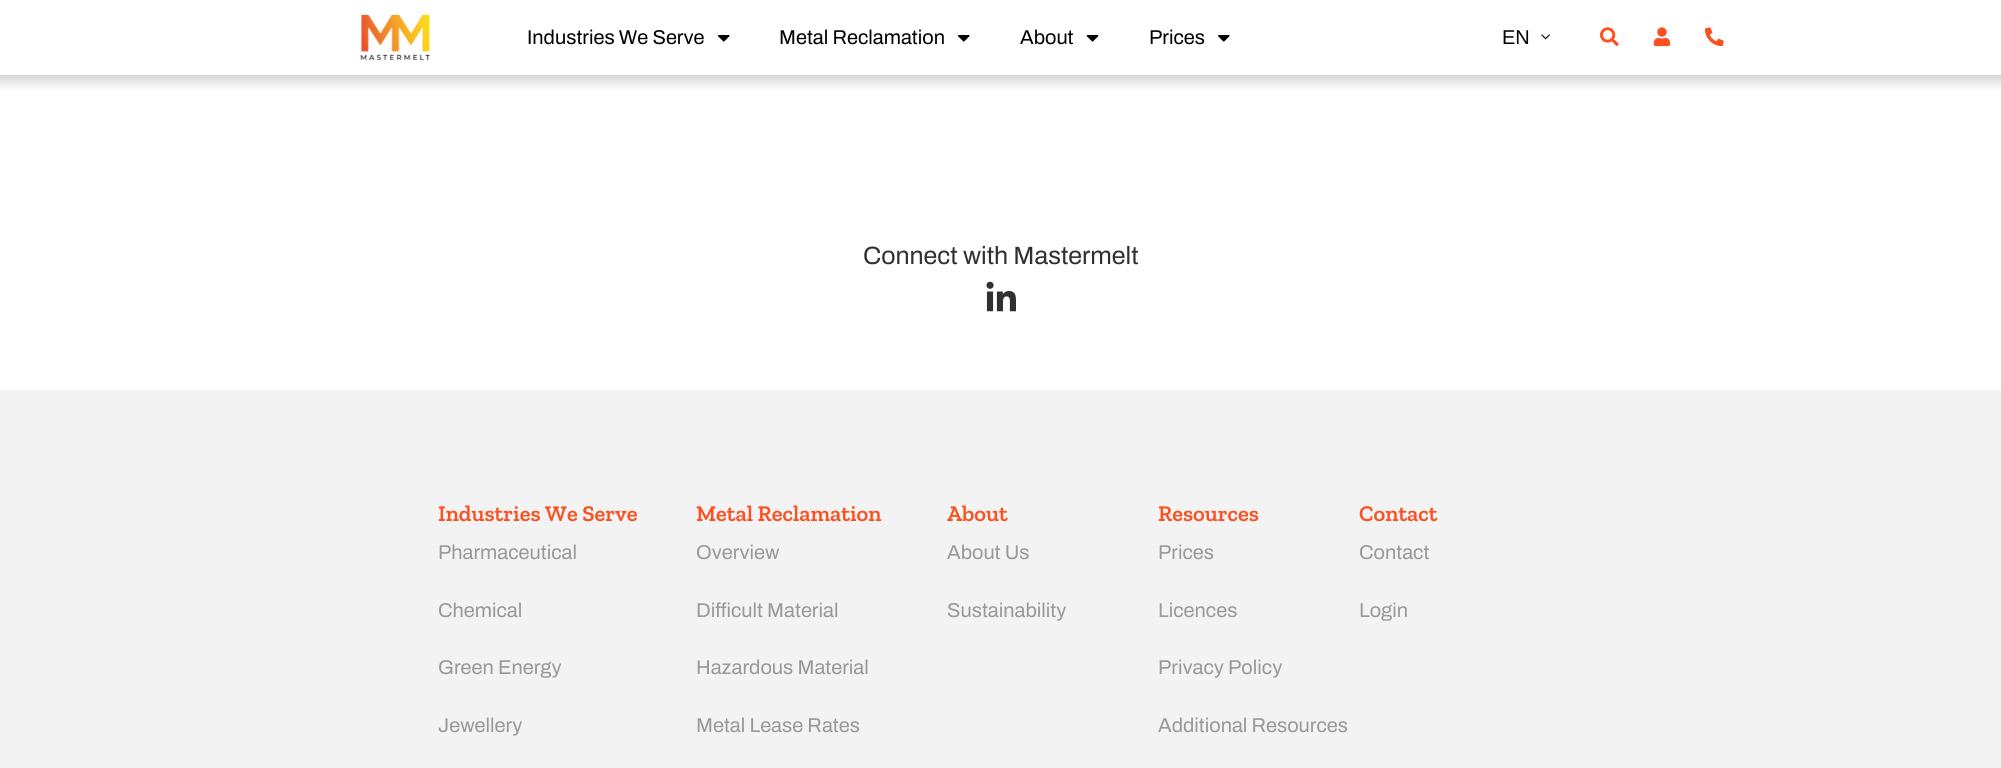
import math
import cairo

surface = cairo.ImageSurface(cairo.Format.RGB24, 2001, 768)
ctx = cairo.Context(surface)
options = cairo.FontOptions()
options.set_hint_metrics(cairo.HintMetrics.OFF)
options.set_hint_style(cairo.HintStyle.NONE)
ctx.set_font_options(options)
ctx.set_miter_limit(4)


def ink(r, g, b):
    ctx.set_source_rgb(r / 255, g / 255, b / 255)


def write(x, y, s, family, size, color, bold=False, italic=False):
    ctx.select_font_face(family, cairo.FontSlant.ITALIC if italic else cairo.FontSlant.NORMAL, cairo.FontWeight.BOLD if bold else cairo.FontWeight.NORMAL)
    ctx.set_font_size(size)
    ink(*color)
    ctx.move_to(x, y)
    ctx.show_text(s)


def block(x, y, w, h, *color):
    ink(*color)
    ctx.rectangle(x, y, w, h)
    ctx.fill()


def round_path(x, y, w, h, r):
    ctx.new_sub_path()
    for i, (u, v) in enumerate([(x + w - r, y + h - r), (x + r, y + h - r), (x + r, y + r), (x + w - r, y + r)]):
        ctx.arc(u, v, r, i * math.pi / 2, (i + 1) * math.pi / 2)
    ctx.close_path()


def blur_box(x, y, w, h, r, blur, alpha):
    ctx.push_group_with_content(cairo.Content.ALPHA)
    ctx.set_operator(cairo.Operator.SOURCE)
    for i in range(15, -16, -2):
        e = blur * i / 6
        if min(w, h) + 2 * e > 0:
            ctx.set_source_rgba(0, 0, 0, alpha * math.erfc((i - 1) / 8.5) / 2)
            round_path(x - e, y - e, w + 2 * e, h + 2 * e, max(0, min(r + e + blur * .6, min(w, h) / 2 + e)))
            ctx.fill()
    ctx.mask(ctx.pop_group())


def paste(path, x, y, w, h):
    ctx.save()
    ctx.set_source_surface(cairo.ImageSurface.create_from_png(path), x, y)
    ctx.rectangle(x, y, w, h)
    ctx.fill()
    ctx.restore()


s1 = dict(family="Archivo", size=20, color=(0, 0, 0))
s2 = dict(family="Liberation Sans", size=20, color=(0, 0, 0))
s3 = dict(family="Archivo", size=25, color=(48, 48, 48))
s4 = dict(family="Zilla Slab SemiBold", size=22.5, color=(251, 80, 32))
s5 = dict(family="Archivo", size=20, color=(152, 152, 152))

ink(255, 255, 255)
ctx.paint()
ctx.save()
ctx.rectangle(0, 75, 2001, 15)
ctx.clip()
ink(0, 0, 0)
blur_box(-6, -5, 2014, 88, 0, 6, 0.16)
ctx.restore()
paste("pic1.png", 360, 14, 71, 47)
write(527, 44, "Industries We Serve", **s1)
paste("pic2.png", 718, 35, 12, 7)
write(779, 44, "Metal Reclamation", **s1)
paste("pic2.png", 958, 35, 12, 7)
write(1020, 44, "About", **s1)
paste("pic3.png", 1086, 35, 13, 7)
write(1149, 44, "Prices", **s1)
paste("pic2.png", 1218, 35, 12, 7)
write(1502, 44, "EN", **s2)
paste("pic4.png", 1541, 34, 9, 6)
paste("pic5.png", 1600, 27, 19, 19)
paste("pic6.png", 1653, 27, 18, 20)
paste("pic7.png", 1705, 27, 19, 20)
write(863, 264, "Connect with Mastermelt", **s3)
paste("pic8.png", 986, 281, 30, 31)
block(0, 390, 2001, 378, 243, 243, 243)
write(438, 521, "Industries We Serve", **s4)
write(438, 559, "Pharmaceutical", **s5)
write(438, 617, "Chemical", **s5)
write(438, 674, "Green Energy", **s5)
write(438, 732, "Jewellery", **s5)
write(696, 521, "Metal Reclamation", **s4)
write(696, 559, "Overview", **s5)
write(696, 617, "Difficult Material", **s5)
write(696, 674, "Hazardous Material", **s5)
write(696, 732, "Metal Lease Rates", **s5)
write(947, 521, "About", **s4)
write(947, 559, "About Us", **s5)
write(947, 617, "Sustainability", **s5)
write(1158, 521, "Resources", **s4)
write(1158, 559, "Prices", **s5)
write(1158, 617, "Licences", **s5)
write(1158, 674, "Privacy Policy", **s5)
write(1158, 732, "Additional Resources", **s5)
write(1359, 521, "Contact", **s4)
write(1359, 559, "Contact", **s5)
write(1359, 617, "Login", **s5)
surface.write_to_png("screenshot.png")
